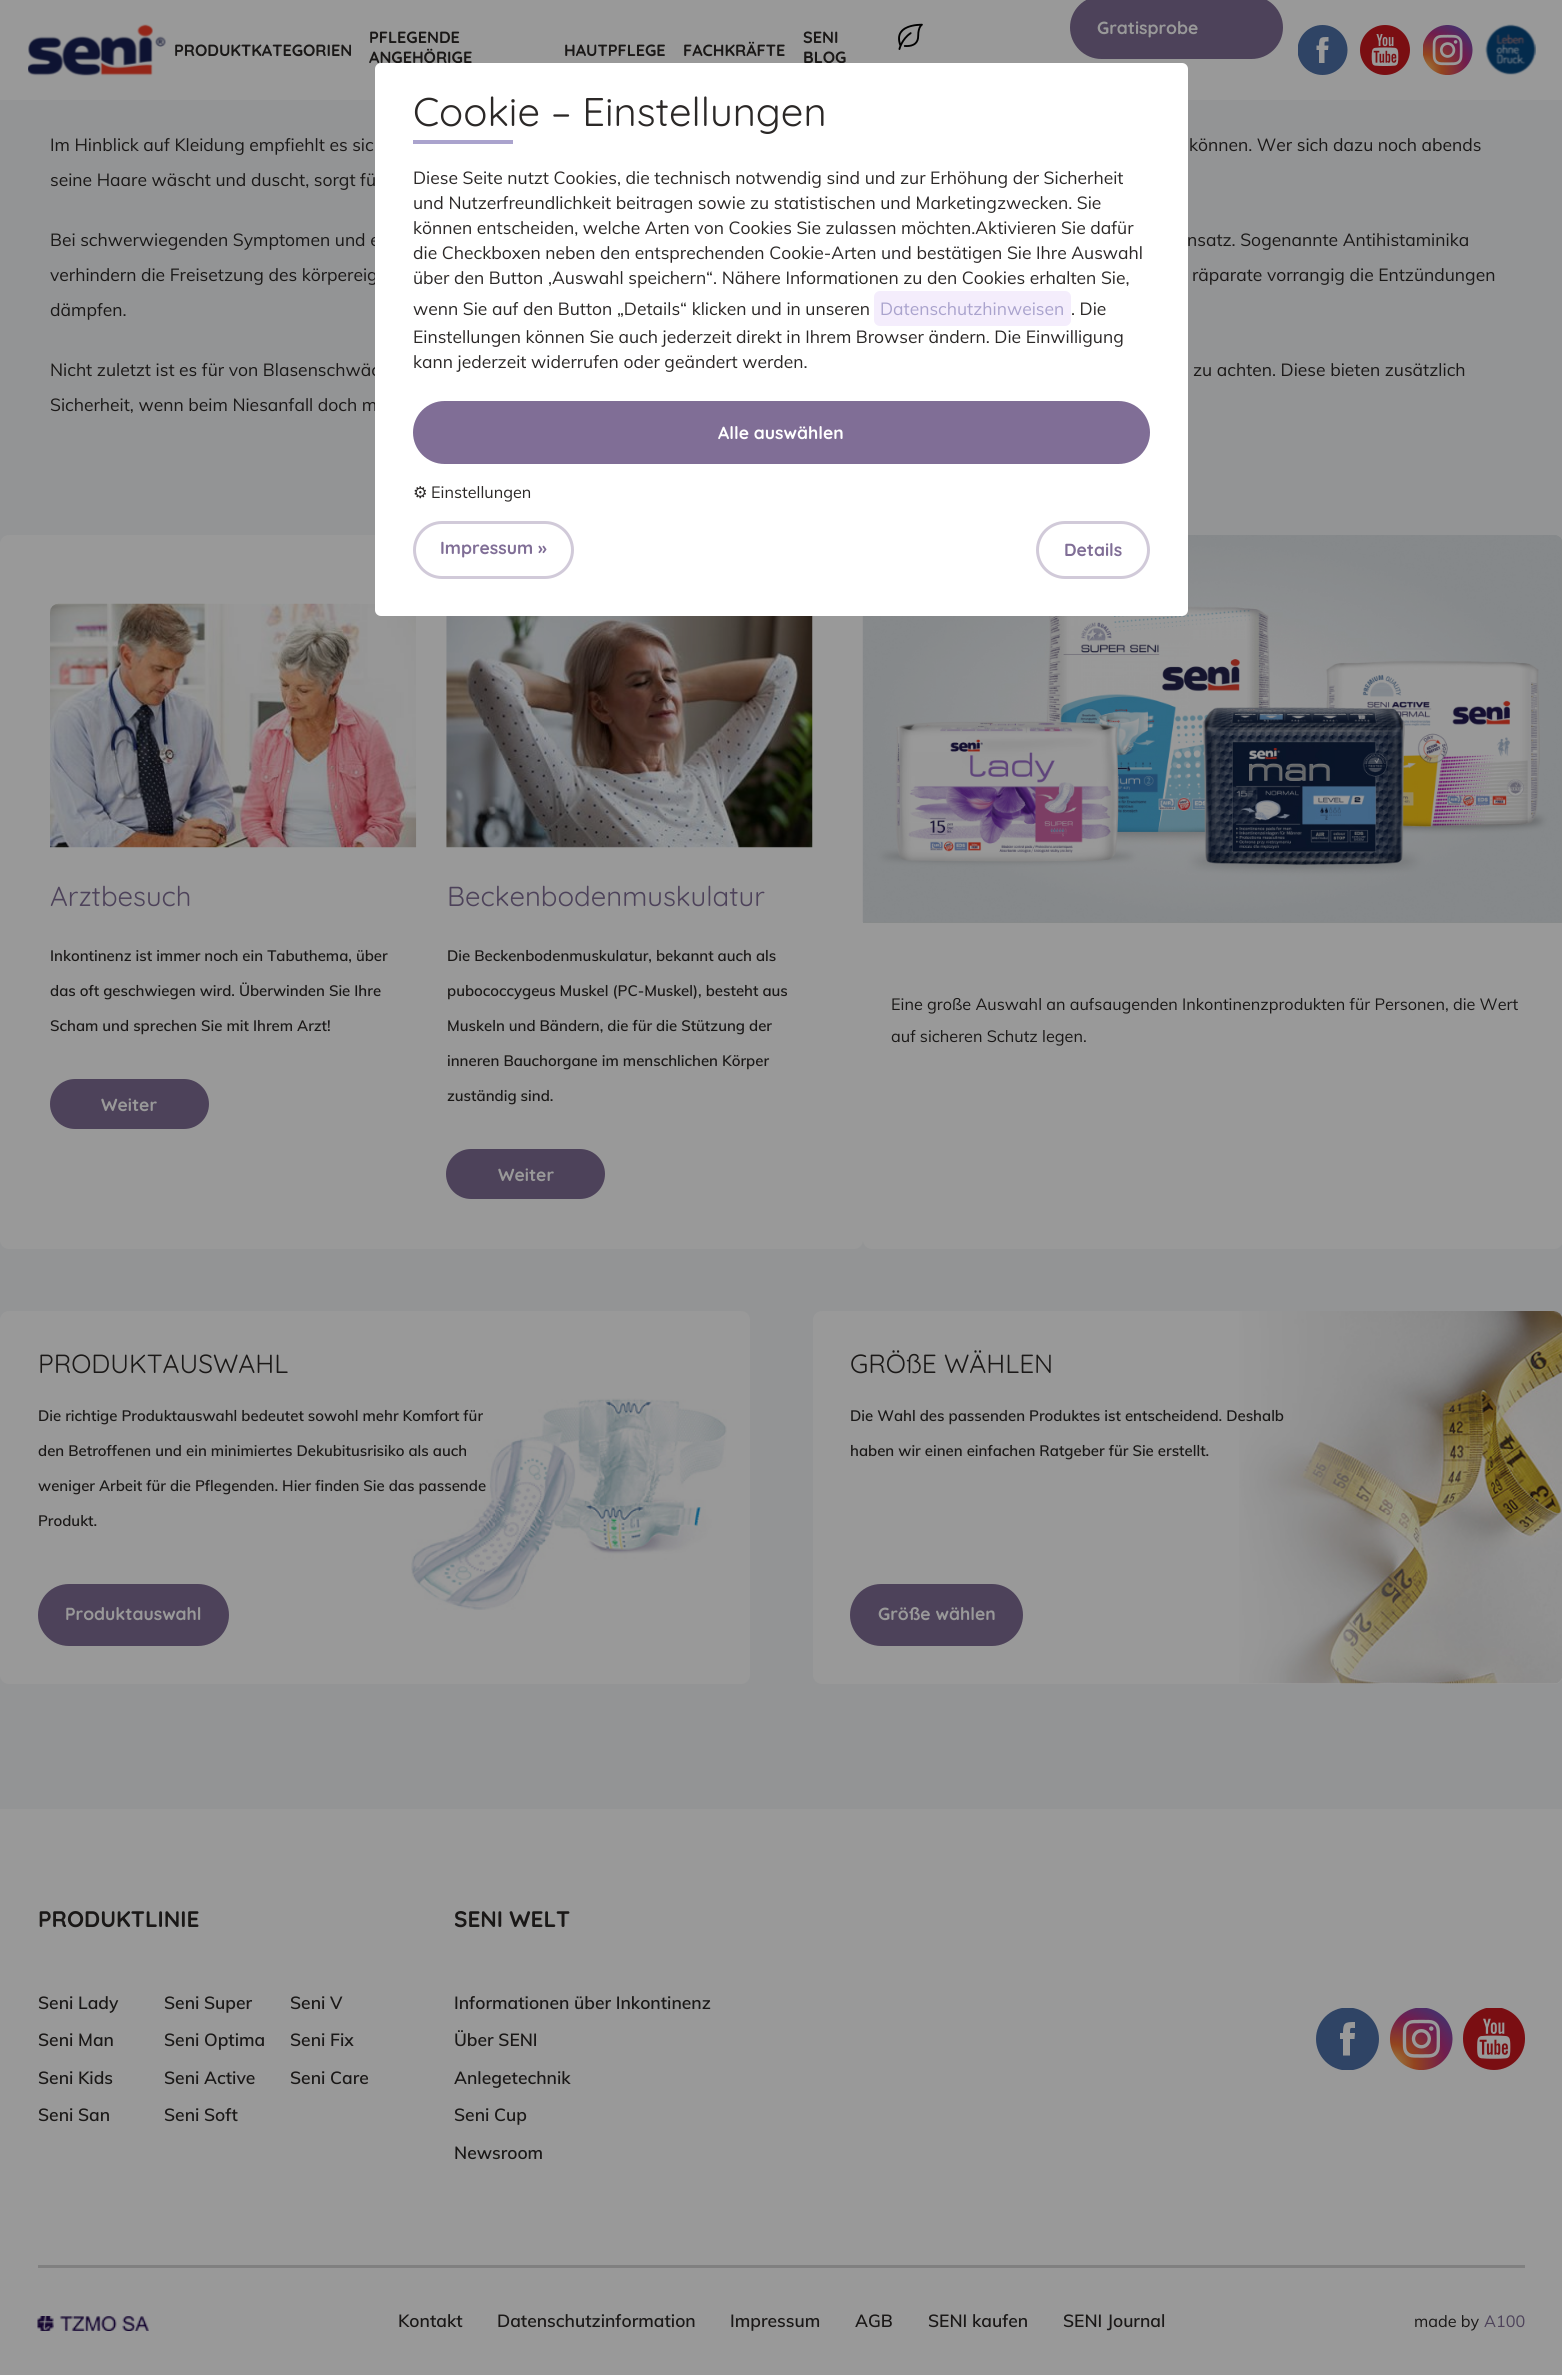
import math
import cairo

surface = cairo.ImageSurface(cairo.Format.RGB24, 1562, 2375)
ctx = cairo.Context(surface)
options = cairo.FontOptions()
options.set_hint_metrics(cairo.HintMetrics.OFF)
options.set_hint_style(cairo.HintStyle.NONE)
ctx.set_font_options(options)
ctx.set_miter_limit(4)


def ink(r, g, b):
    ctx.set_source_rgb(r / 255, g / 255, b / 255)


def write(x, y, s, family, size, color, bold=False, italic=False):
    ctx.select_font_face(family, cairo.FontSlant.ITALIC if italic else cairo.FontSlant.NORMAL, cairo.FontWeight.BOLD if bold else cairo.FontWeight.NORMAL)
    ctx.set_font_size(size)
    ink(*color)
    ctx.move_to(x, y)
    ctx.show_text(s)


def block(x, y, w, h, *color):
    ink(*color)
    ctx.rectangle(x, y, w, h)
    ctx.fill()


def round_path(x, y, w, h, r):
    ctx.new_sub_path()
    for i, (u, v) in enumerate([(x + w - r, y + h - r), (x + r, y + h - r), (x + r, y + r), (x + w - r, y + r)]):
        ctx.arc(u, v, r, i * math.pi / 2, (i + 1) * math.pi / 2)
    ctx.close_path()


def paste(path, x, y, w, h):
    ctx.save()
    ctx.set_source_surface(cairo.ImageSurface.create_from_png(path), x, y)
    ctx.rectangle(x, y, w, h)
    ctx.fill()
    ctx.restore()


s1 = dict(family="Quicksand", size=16.25, color=(26, 24, 23), bold=True)
s2 = dict(family="Quicksand", size=17.5, color=(153, 153, 153), bold=True)
s3 = dict(family="Muli", size=17.5, color=(26, 24, 23))
s4 = dict(family="Quicksand", size=40, color=(43, 40, 39))
s5 = dict(family="Muli", size=17.5, color=(43, 40, 39))
s6 = dict(family="Muli", size=17.5, color=(170, 163, 205))
s7 = dict(family="Quicksand", size=17.5, color=(255, 255, 255), bold=True)
s8 = dict(family="DejaVu Sans", size=16.25, color=(43, 40, 39))
s9 = dict(family="Muli", size=16.25, color=(43, 40, 39))
s10 = dict(family="Quicksand", size=17.5, color=(128, 110, 150), bold=True)
s11 = dict(family="Quicksand", size=27.5, color=(77, 66, 90))
s12 = dict(family="Muli SemiBold", size=15, color=(26, 24, 23))
s13 = dict(family="Muli", size=16.25, color=(26, 24, 23))
s14 = dict(family="Quicksand", size=26.25, color=(26, 24, 23))
s15 = dict(family="Quicksand", size=22.5, color=(26, 24, 23), bold=True)
s16 = dict(family="Muli SemiBold", size=17.5, color=(26, 24, 23))
s17 = dict(family="Muli", size=16.25, color=(77, 66, 90))

ink(147, 148, 149)
ctx.paint()
block(0, 0, 1562, 100, 153, 153, 153)
paste("pic1.png", 28, 24, 138, 52)
write(174, 56, "PRODUKTKATEGORIEN", **s1)
write(369, 43, "PFLEGENDE", **s1)
write(369, 63, "ANGEHÖRIGE", **s1)
write(564, 56, "HAUTPFLEGE", **s1)
write(683, 56, "FACHKRÄFTE", **s1)
write(803, 43, "SENI", **s1)
write(803, 63, "BLOG", **s1)
paste("pic2.png", 898, 23, 25, 27)
ink(77, 66, 90)
round_path(1070, -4, 213, 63, 31.5)
ctx.fill()
write(1097, 34, "Gratisprobe", **s2)
ctx.save()
ctx.rectangle(1298, 25, 50, 50)
ctx.clip()
ink(47, 68, 101)
ctx.arc(1322.5, 50, 25, 0, 2 * math.pi)
ctx.fill()
ctx.restore()
ctx.new_path()
ctx.move_to(1328.5, 45.5)
ctx.line_to(1324.5, 45.5)
ctx.curve_to(1324.5, 41, 1324.5, 41.5, 1328.5, 41.5)
ctx.line_to(1328.5, 37)
ctx.curve_to(1320.5, 37, 1319, 37, 1319, 45.5)
ctx.line_to(1316.5, 45.5)
ctx.line_to(1316.5, 50)
ctx.line_to(1319, 50)
ctx.line_to(1319, 63)
ctx.line_to(1324.5, 63)
ctx.line_to(1324.5, 50)
ctx.line_to(1328, 50)
ctx.close_path()
ctx.fill()
paste("pic3.png", 1360, 25, 50, 50)
paste("pic4.png", 1423, 25, 50, 50)
paste("pic5.png", 1485, 24, 51, 51)
write(50, 246, "Bei schwerwiegenden Symptomen und e", **s3)
write(1187, 246, "nsatz. Sogenannte Antihistaminika", **s3)
write(50, 281, "verhindern die Freisetzung des körpereig", **s3)
write(50, 376, "Nicht zuletzt ist es für von Blasenschwäc", **s3)
write(50, 411, "Sicherheit, wenn beim Niesanfall doch m", **s3)
ink(153, 153, 153)
round_path(0, 535, 863, 714, 9)
ctx.fill()
paste("pic6.png", 50, 603, 367, 245)
round_path(863, 535, 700, 714, 9)
ctx.fill()
ink(134, 137, 137)
ctx.new_path()
ctx.move_to(872, 535)
ctx.line_to(1554, 535)
ctx.curve_to(1559, 535, 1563, 539, 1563, 544)
ctx.line_to(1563, 923)
ctx.line_to(863, 923)
ctx.line_to(863, 544)
ctx.curve_to(863, 539, 867, 535, 872, 535)
ctx.close_path()
ctx.fill()
paste("pic8.png", 862, 535, 699, 387)
ink(255, 255, 255)
round_path(375, 63, 813, 553, 6)
ctx.fill()
write(413, 126, "Cookie – Einstellungen", **s4)
block(413, 140, 100, 4, 170, 163, 205)
write(413, 184, "Diese Seite nutzt Cookies, die technisch notwendig sind und zur Erhöhung der Sicherheit", **s5)
write(413, 209, "und Nutzerfreundlichkeit beitragen sowie zu statistischen und Marketingzwecken. Sie", **s5)
write(413, 234, "können entscheiden, welche Arten von Cookies Sie zulassen möchten.Aktivieren Sie dafür", **s5)
write(413, 259, "die Checkboxen neben den entsprechenden Cookie-Arten und bestätigen Sie Ihre Auswahl", **s5)
write(413, 284, "über den Button ‚Auswahl speichern“. Nähere Informationen zu den Cookies erhalten Sie,", **s5)
write(413, 315, "wenn Sie auf den Button „Details“ klicken und in unseren", **s5)
ink(244, 237, 252)
round_path(874, 291, 197, 35, 6)
ctx.fill()
write(880, 315, "Datenschutzhinweisen", **s6)
write(1071, 315, ". Die", **s5)
write(413, 343, "Einstellungen können Sie auch jederzeit direkt in Ihrem Browser ändern. Die Einwilligung", **s5)
write(413, 368, "kann jederzeit widerrufen oder geändert werden.", **s5)
ink(128, 110, 150)
round_path(413, 401, 737, 63, 31.5)
ctx.fill()
write(718, 439, "Alle auswählen", **s7)
write(413, 498, "⚙", **s8)
write(431, 498, "Einstellungen", **s9)
round_path(414.5, 522.5, 158, 55, 27.5)
ink(209, 202, 217)
ctx.set_line_width(3)
ctx.stroke()
write(440, 554, "Impressum »", **s10)
round_path(1037.5, 522.5, 111, 55, 27.5)
ink(209, 202, 217)
ctx.stroke()
write(1064, 556, "Details", **s10)
write(50, 151, "Im Hinblick auf Kleidung empfiehlt es sic", **s3)
write(1189, 151, "können. Wer sich dazu noch abends", **s3)
write(50, 186, "seine Haare wäscht und duscht, sorgt fü", **s3)
write(1192, 281, "räparate vorrangig die Entzündungen", **s3)
write(50, 316, "dämpfen.", **s3)
write(1193, 376, "zu achten. Diese bieten zusätzlich", **s3)
write(50, 906, "Arztbesuch", **s11)
write(50, 961, "Inkontinenz ist immer noch ein Tabuthema, über", **s12)
write(50, 996, "das oft geschwiegen wird. Überwinden Sie Ihre", **s12)
write(50, 1031, "Scham und sprechen Sie mit Ihrem Arzt!", **s12)
ink(77, 66, 90)
round_path(50, 1079, 159, 50, 25)
ctx.fill()
write(101, 1111, "Weiter", **s2)
paste("pic7.png", 446, 616, 367, 232)
write(447, 906, "Beckenbodenmuskulatur", **s11)
write(447, 961, "Die Beckenbodenmuskulatur, bekannt auch als", **s12)
write(447, 996, "pubococcygeus Muskel (PC-Muskel), besteht aus", **s12)
write(447, 1031, "Muskeln und Bändern, die für die Stützung der", **s12)
write(447, 1066, "inneren Bauchorgane im menschlichen Körper", **s12)
write(447, 1101, "zuständig sind.", **s12)
ink(77, 66, 90)
round_path(446, 1149, 159, 50, 25)
ctx.fill()
write(498, 1181, "Weiter", **s2)
write(891, 1010, "Eine große Auswahl an aufsaugenden Inkontinenzprodukten für Personen, die Wert", **s13)
write(891, 1042, "auf sicheren Schutz legen.", **s13)
ink(153, 153, 153)
round_path(0, 1311, 750, 373, 9)
ctx.fill()
paste("pic9.png", 411, 1398, 316, 212)
write(38, 1373, "PRODUKTAUSWAHL", **s14)
write(38, 1421, "Die richtige Produktauswahl bedeutet sowohl mehr Komfort für", **s12)
write(38, 1456, "den Betroffenen und ein minimiertes Dekubitusrisiko als auch", **s12)
write(38, 1491, "weniger Arbeit für die Pflegenden. Hier finden Sie das passende", **s12)
write(38, 1526, "Produkt.", **s12)
ink(77, 66, 90)
round_path(38, 1584, 191, 62, 31)
ctx.fill()
write(65, 1620, "Produktauswahl", **s2)
round_path(813, 1311, 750, 373, 9)
ctx.fill()
paste("pic10.png", 1239, 1311, 323, 373)
write(850, 1373, "GRÖßE WÄHLEN", **s14)
write(850, 1421, "Die Wahl des passenden Produktes ist entscheidend. Deshalb", **s12)
write(850, 1456, "haben wir einen einfachen Ratgeber für Sie erstellt.", **s12)
ink(77, 66, 90)
round_path(850, 1584, 173, 62, 31)
ctx.fill()
write(878, 1620, "Größe wählen", **s2)
block(0, 1809, 1562, 566, 153, 153, 153)
write(38, 1927, "PRODUKTLINIE", **s15)
write(38, 2009, "Seni Lady", **s16)
write(164, 2009, "Seni Super", **s16)
write(290, 2009, "Seni V", **s16)
write(38, 2046, "Seni Man", **s16)
write(164, 2046, "Seni Optima", **s16)
write(290, 2046, "Seni Fix", **s16)
write(38, 2084, "Seni Kids", **s16)
write(164, 2084, "Seni Active", **s16)
write(290, 2084, "Seni Care", **s16)
write(38, 2121, "Seni San", **s16)
write(164, 2121, "Seni Soft", **s16)
write(454, 1927, "SENI WELT", **s15)
write(454, 2009, "Informationen über Inkontinenz", **s16)
write(454, 2046, "Über SENI", **s16)
write(454, 2084, "Anlegetechnik", **s16)
write(454, 2121, "Seni Cup", **s16)
write(454, 2159, "Newsroom", **s16)
ctx.save()
ctx.rectangle(1316, 2008, 63, 62)
ctx.clip()
ink(47, 68, 101)
ctx.arc(1347.5, 2039, 31.5, 0, 2 * math.pi)
ctx.fill()
ctx.restore()
ink(153, 153, 153)
ctx.new_path()
ctx.move_to(1355, 2033)
ctx.line_to(1350, 2033)
ctx.curve_to(1350, 2027, 1350, 2028, 1355, 2028)
ctx.line_to(1355, 2022)
ctx.curve_to(1345, 2022, 1343, 2022.5, 1343, 2033)
ctx.line_to(1340, 2033)
ctx.line_to(1340, 2039)
ctx.line_to(1343, 2039)
ctx.line_to(1343, 2055.5)
ctx.line_to(1350, 2055.5)
ctx.line_to(1350, 2039)
ctx.line_to(1354.5, 2039)
ctx.close_path()
ctx.fill()
paste("pic11.png", 1390, 2008, 63, 62)
paste("pic12.png", 1463, 2008, 62, 62)
block(38, 2265, 1487, 3, 128, 128, 128)
paste("pic13.png", 37, 2316, 112, 15)
write(398, 2327, "Kontakt", **s16)
write(497, 2327, "Datenschutzinformation", **s16)
write(730, 2327, "Impressum", **s16)
write(855, 2327, "AGB", **s16)
write(928, 2327, "SENI kaufen", **s16)
write(1063, 2327, "SENI Journal", **s16)
write(1414, 2327, "made by", **s13)
write(1484, 2327, "A100", **s17)
surface.write_to_png("screenshot.png")
